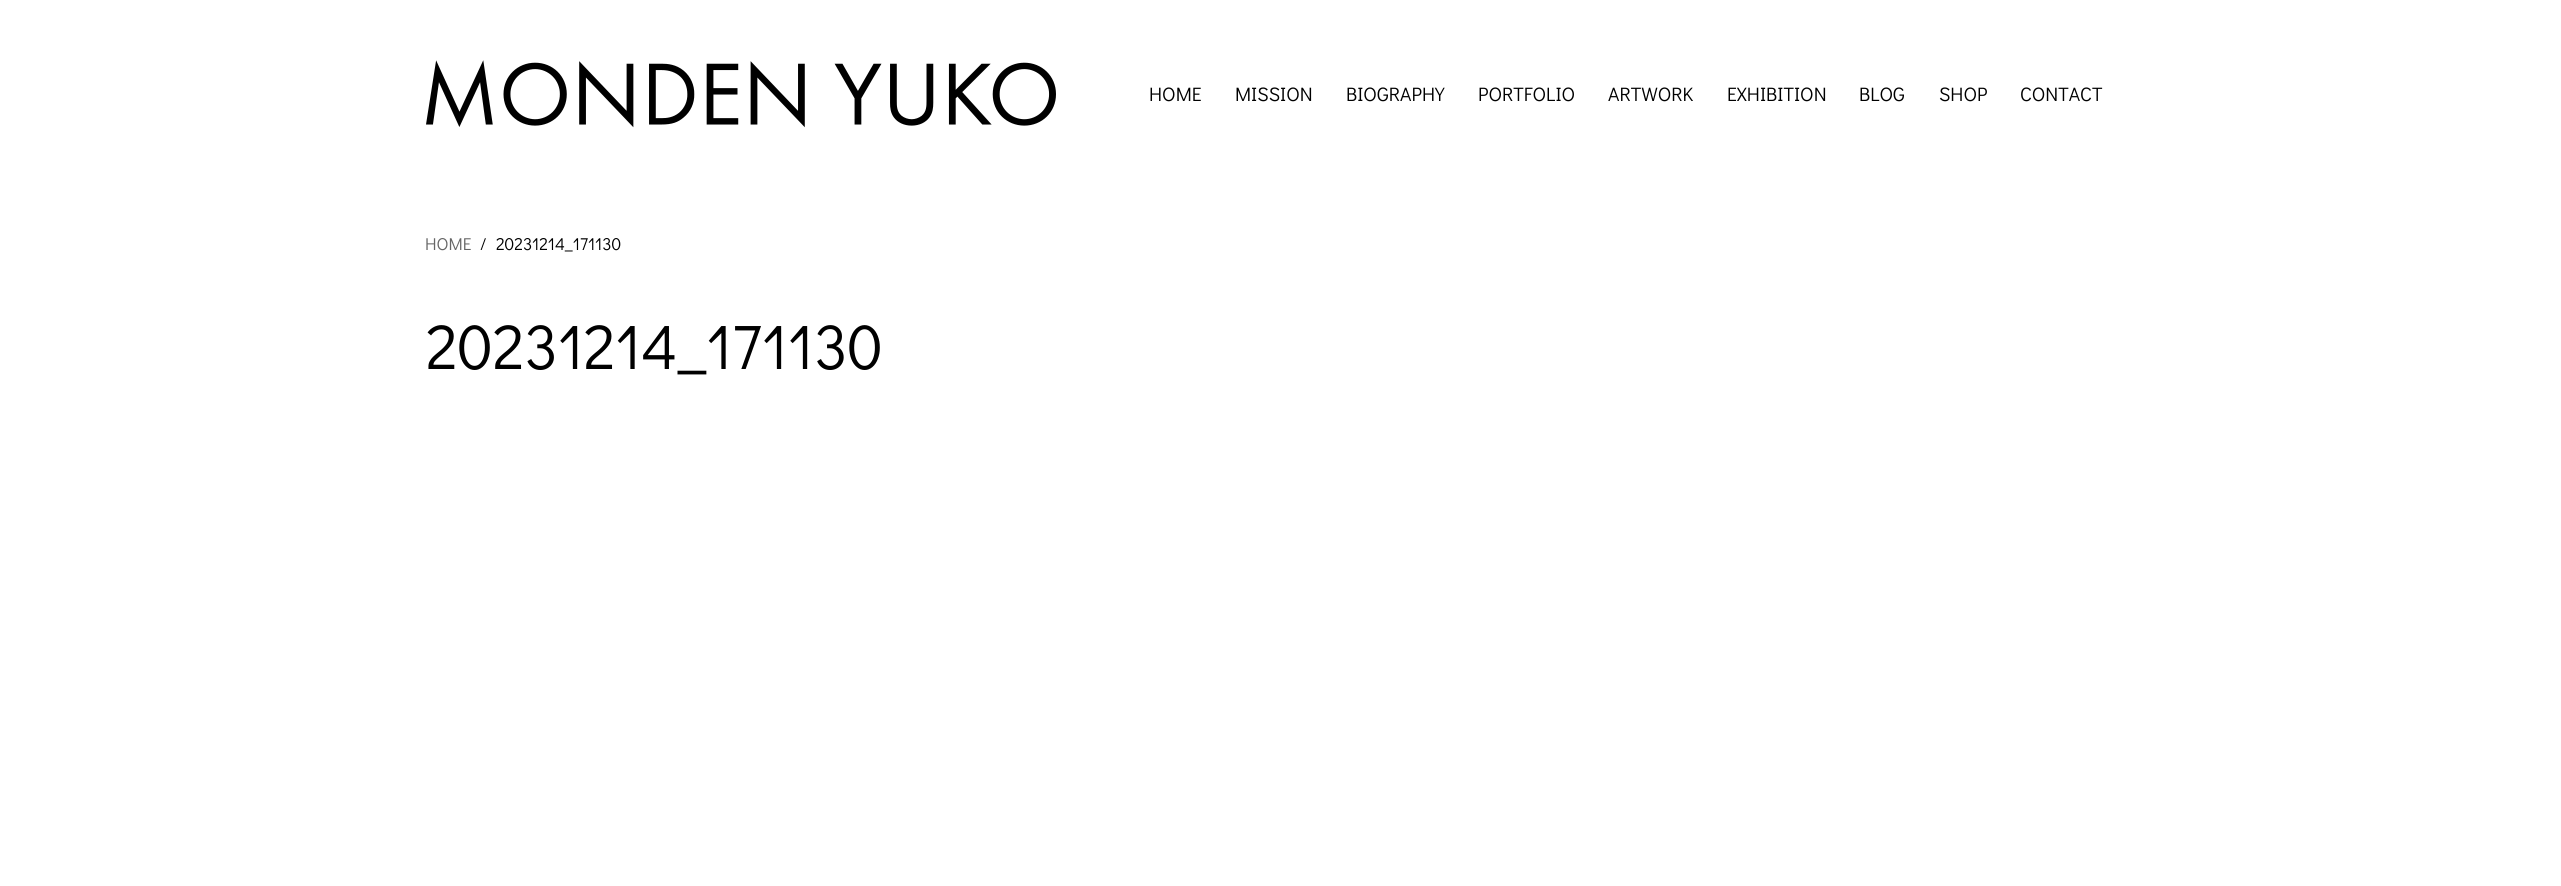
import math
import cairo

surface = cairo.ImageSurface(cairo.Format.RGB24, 2561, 886)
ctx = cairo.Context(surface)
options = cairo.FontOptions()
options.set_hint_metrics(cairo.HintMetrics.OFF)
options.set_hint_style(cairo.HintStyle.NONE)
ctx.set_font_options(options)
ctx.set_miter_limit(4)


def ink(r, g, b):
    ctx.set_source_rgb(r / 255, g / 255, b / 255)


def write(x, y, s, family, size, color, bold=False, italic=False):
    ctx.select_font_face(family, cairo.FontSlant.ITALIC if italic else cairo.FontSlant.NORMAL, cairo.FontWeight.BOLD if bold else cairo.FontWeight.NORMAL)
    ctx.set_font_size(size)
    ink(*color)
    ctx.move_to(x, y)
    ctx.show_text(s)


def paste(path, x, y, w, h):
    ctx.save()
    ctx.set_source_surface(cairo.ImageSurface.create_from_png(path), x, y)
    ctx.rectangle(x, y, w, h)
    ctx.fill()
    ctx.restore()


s1 = dict(family="Didact Gothic", size=19.5, color=(0, 0, 0))
s2 = dict(family="Didact Gothic", size=17.25, color=(102, 102, 102))
s3 = dict(family="Didact Gothic", size=17.25, color=(0, 0, 0))
s4 = dict(family="Didact Gothic", size=63, color=(0, 0, 0))

ink(255, 255, 255)
ctx.paint()
paste("pic1.png", 426, 60, 630, 68)
write(1149, 101, "HOME", **s1)
write(1235, 101, "MISSION", **s1)
write(1346, 101, "BIOGRAPHY", **s1)
write(1478, 101, "PORTFOLIO", **s1)
write(1608, 101, "ARTWORK", **s1)
write(1727, 101, "EXHIBITION", **s1)
write(1859, 101, "BLOG", **s1)
write(1939, 101, "SHOP", **s1)
write(2020, 101, "CONTACT", **s1)
write(425, 250, "HOME", **s2)
write(480, 250, "/", **s3)
write(496, 250, "20231214_171130", **s3)
write(426, 369, "20231214_171130", **s4)
surface.write_to_png("screenshot.png")
